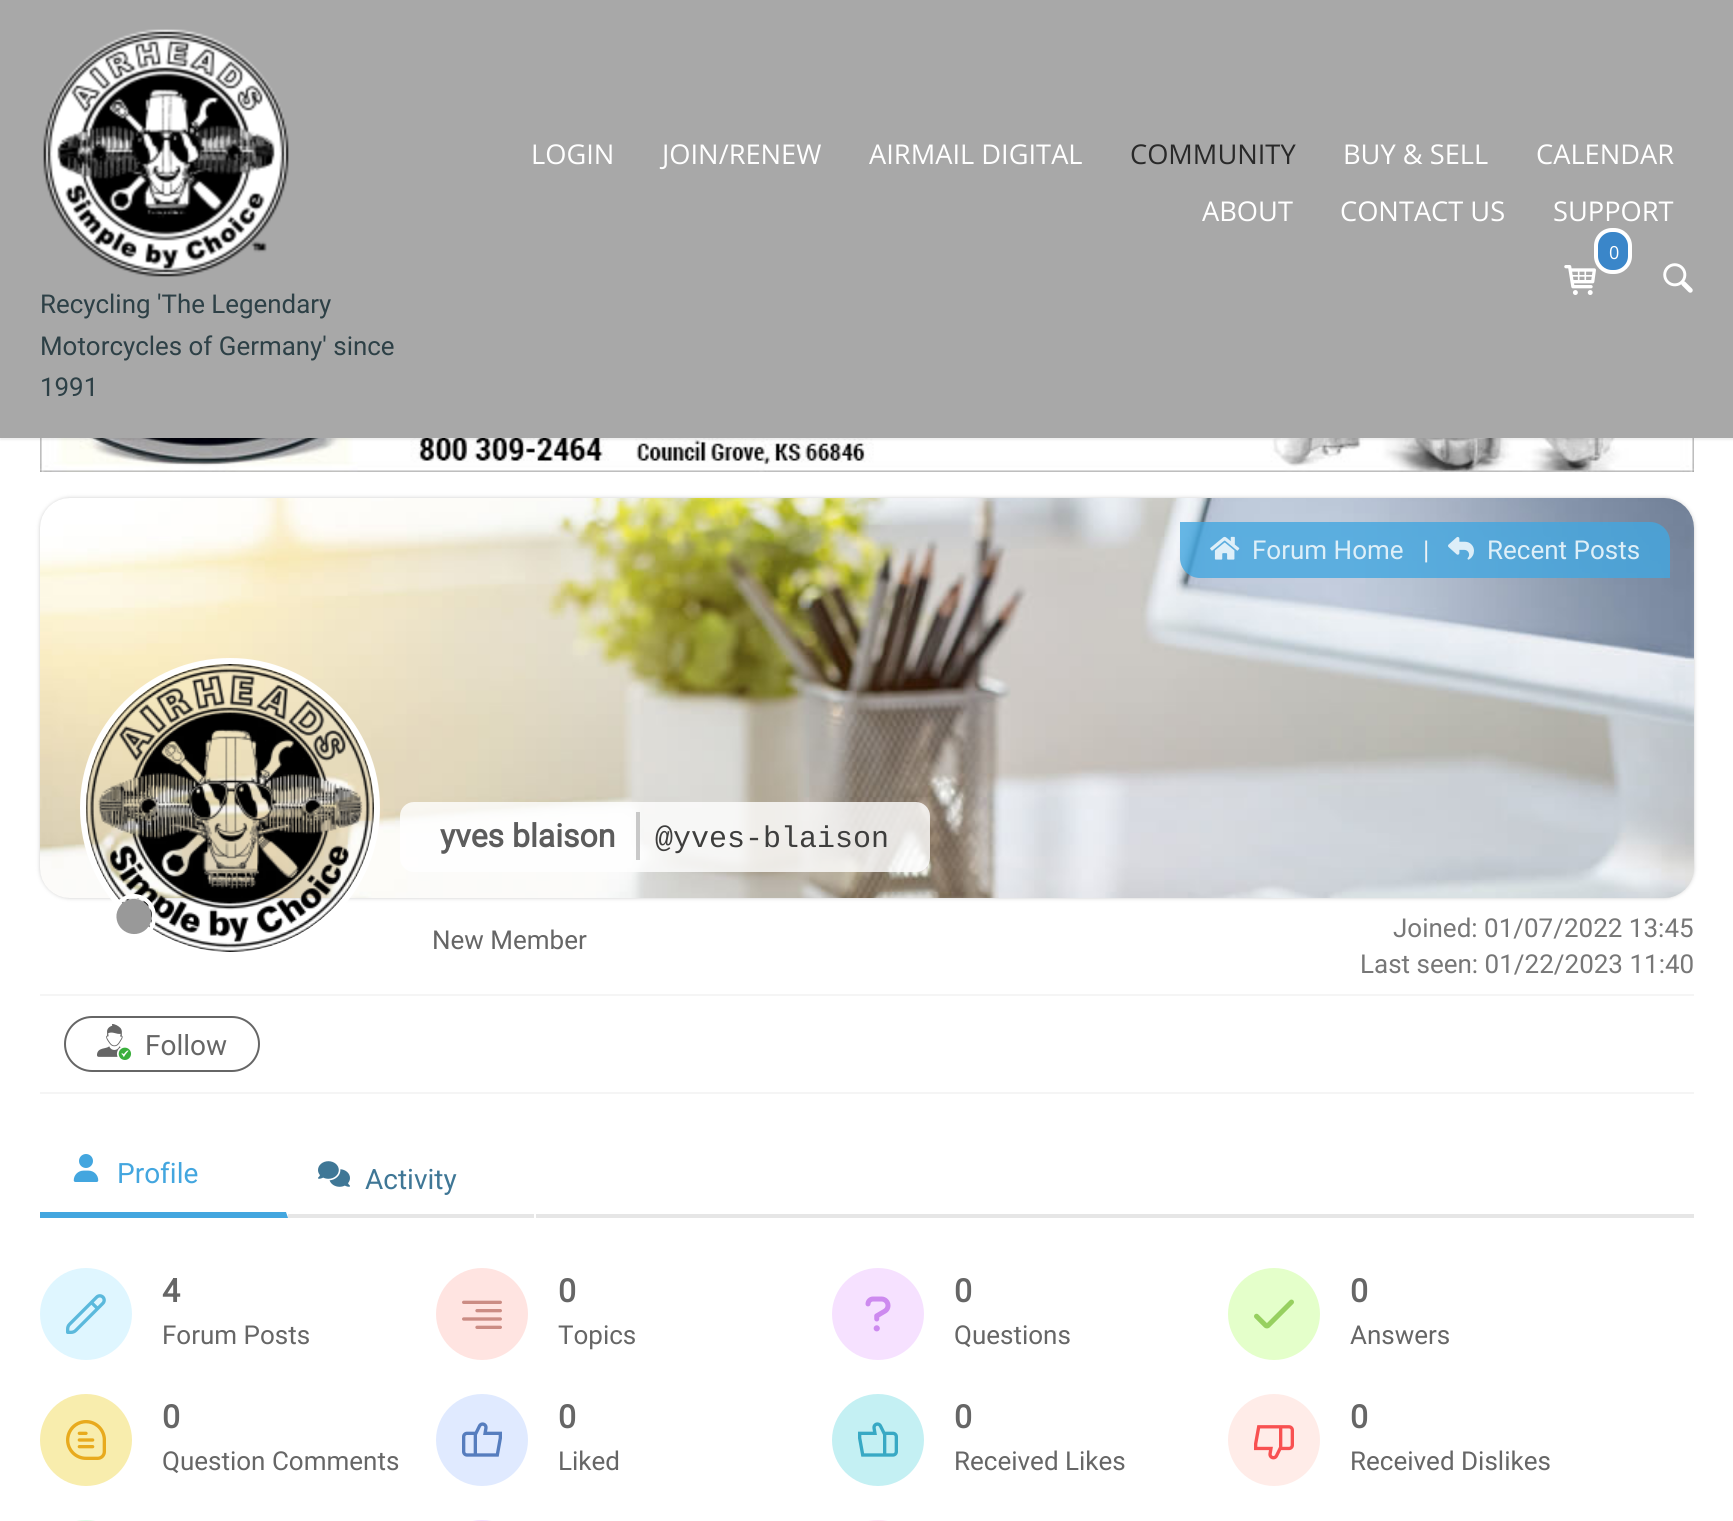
import math
import cairo

surface = cairo.ImageSurface(cairo.Format.RGB24, 1733, 1521)
ctx = cairo.Context(surface)
options = cairo.FontOptions()
options.set_hint_metrics(cairo.HintMetrics.OFF)
options.set_hint_style(cairo.HintStyle.NONE)
ctx.set_font_options(options)
ctx.set_miter_limit(4)


def ink(r, g, b):
    ctx.set_source_rgb(r / 255, g / 255, b / 255)


def write(x, y, s, family, size, color, bold=False, italic=False):
    ctx.select_font_face(family, cairo.FontSlant.ITALIC if italic else cairo.FontSlant.NORMAL, cairo.FontWeight.BOLD if bold else cairo.FontWeight.NORMAL)
    ctx.set_font_size(size)
    ink(*color)
    ctx.move_to(x, y)
    ctx.show_text(s)


def block(x, y, w, h, *color):
    ink(*color)
    ctx.rectangle(x, y, w, h)
    ctx.fill()


def round_path(x, y, w, h, r):
    ctx.new_sub_path()
    for i, (u, v) in enumerate([(x + w - r, y + h - r), (x + r, y + h - r), (x + r, y + r), (x + w - r, y + r)]):
        ctx.arc(u, v, r, i * math.pi / 2, (i + 1) * math.pi / 2)
    ctx.close_path()


def blur_box(x, y, w, h, r, blur, alpha):
    ctx.push_group_with_content(cairo.Content.ALPHA)
    ctx.set_operator(cairo.Operator.SOURCE)
    for i in range(15, -16, -2):
        e = blur * i / 6
        if min(w, h) + 2 * e > 0:
            ctx.set_source_rgba(0, 0, 0, alpha * math.erfc((i - 1) / 8.5) / 2)
            round_path(x - e, y - e, w + 2 * e, h + 2 * e, max(0, min(r + e + blur * .6, min(w, h) / 2 + e)))
            ctx.fill()
    ctx.mask(ctx.pop_group())


def paste(path, x, y, w, h):
    ctx.save()
    ctx.set_source_surface(cairo.ImageSurface.create_from_png(path), x, y)
    ctx.rectangle(x, y, w, h)
    ctx.fill()
    ctx.restore()


s1 = dict(family="Open Sans", size=27.25, color=(255, 255, 255))
s2 = dict(family="Open Sans", size=27.25, color=(41, 41, 41))
s3 = dict(family="Open Sans", size=18, color=(255, 255, 255))
s4 = dict(family="Roboto", size=25.9, color=(45, 64, 70))
s5 = dict(family="Roboto", size=26, color=(222, 239, 248))
s6 = dict(family="Roboto", size=26, color=(239, 242, 245))
s7 = dict(family="Roboto", size=32, color=(92, 92, 92), bold=True)
s8 = dict(family="Liberation Mono", size=30, color=(62, 62, 61))
s9 = dict(family="Roboto", size=26, color=(102, 102, 102))
s10 = dict(family="Roboto", size=26, color=(119, 119, 119))
s11 = dict(family="Roboto", size=28, color=(102, 102, 102))
s12 = dict(family="Roboto", size=28, color=(67, 166, 223))
s13 = dict(family="Roboto", size=28, color=(63, 119, 150))
s14 = dict(family="Roboto", size=32, color=(102, 102, 102), bold=True)

ink(255, 255, 255)
ctx.paint()
paste("pic4.png", 40, 438, 1654, 34)
ink(0, 0, 0)
blur_box(0, 2, 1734, 438, 0, 1, 0.07)
block(0, 0, 1733, 438, 168, 168, 168)
write(531, 164, "LOGIN", **s1)
write(662, 164, "JOIN/RENEW", **s1)
write(869, 164, "AIRMAIL DIGITAL", **s1)
write(1130, 164, "COMMUNITY", **s2)
write(1343, 164, "BUY & SELL", **s1)
write(1536, 164, "CALENDAR", **s1)
write(1202, 221, "ABOUT", **s1)
write(1340, 221, "CONTACT US", **s1)
write(1553, 221, "SUPPORT", **s1)
paste("pic1.png", 1564, 265, 32, 30)
ink(58, 134, 201)
round_path(1596, 230, 34, 42, 16)
ctx.fill_preserve()
ink(255, 255, 255)
ctx.set_line_width(4)
ctx.stroke()
write(1609, 259, "0", **s3)
paste("pic2.png", 1663, 263, 30, 30)
paste("pic3.png", 43, 29, 246, 248)
write(40, 313, "Recycling 'The Legendary", **s4)
write(40, 355, "Motorcycles of Germany' since", **s4)
write(40, 396, "1991", **s4)
ink(204, 204, 204)
blur_box(40, 498, 1654, 400, 30, 2, 1)
paste("pic5.png", 40, 498, 1654, 400)
ctx.set_source_rgba(0.263, 0.651, 0.875, 0.8)
ctx.new_path()
ctx.move_to(1180, 522)
ctx.line_to(1650, 522)
ctx.curve_to(1661, 522, 1670, 531, 1670, 542)
ctx.line_to(1670, 578)
ctx.line_to(1200, 578)
ctx.curve_to(1189, 578, 1180, 569, 1180, 558)
ctx.close_path()
ctx.fill()
paste("pic6.png", 1210, 536, 30, 24)
write(1252, 559, "Forum Home", **s5)
write(1423, 559, "|", **s6)
paste("pic7.png", 1448, 536, 26, 24)
write(1487, 559, "Recent Posts", **s5)
ctx.new_path()
ctx.arc(230, 808, 147, 0, 2 * math.pi)
ink(255, 255, 255)
ctx.set_line_width(6)
ctx.stroke()
paste("pic8.png", 86, 664, 288, 288)
round_path(114, 896, 40, 42, 20)
ctx.set_line_width(4)
ctx.stroke()
ink(153, 153, 153)
ctx.new_path()
ctx.move_to(121.5, 904)
ctx.curve_to(124.5, 901.5, 128, 899.5, 132, 899)
ctx.curve_to(148.5, 897.5, 158, 917, 146.5, 929)
ctx.curve_to(134.5, 940.5, 115, 931, 116.5, 914.5)
ctx.curve_to(117, 910.5, 119, 907, 121.5, 904)
ctx.close_path()
ctx.fill()
ctx.set_source_rgba(1, 1, 1, 0.8)
round_path(400, 802, 530, 70, 14)
ctx.fill()
write(440, 847, "yves blaison", **s7)
ctx.set_source_rgba(0.733, 0.733, 0.733, 0.8)
ctx.rectangle(636, 812, 4, 48)
ctx.fill()
write(655, 847, "@yves-blaison", **s8)
write(432, 949, "New Member", **s9)
write(1393, 937, "Joined: 01/07/2022 13:45", **s10)
write(1360, 973, "Last seen: 01/22/2023 11:40", **s10)
block(40, 994, 1654, 2, 245, 245, 245)
block(40, 1092, 1654, 2, 245, 245, 245)
round_path(65, 1017, 194, 54, 27)
ink(102, 102, 102)
ctx.set_line_width(2)
ctx.stroke()
paste("pic9.png", 97, 1024, 35, 36)
write(145, 1055, "Follow", **s11)
block(286, 1214, 1408, 4, 230, 230, 230)
ink(255, 255, 255)
ctx.new_path()
ctx.move_to(288, 1134)
ctx.line_to(288, 1218)
ctx.line_to(286, 1212)
ctx.line_to(286, 1134)
ctx.close_path()
ctx.fill()
ink(67, 166, 223)
ctx.new_path()
ctx.move_to(288, 1218)
ctx.line_to(40, 1218)
ctx.line_to(40, 1212)
ctx.line_to(286, 1212)
ctx.close_path()
ctx.fill()
paste("pic10.png", 73, 1154, 26, 28)
write(117, 1183, "Profile", **s12)
block(534, 1214, 2, 4, 255, 255, 255)
paste("pic11.png", 318, 1161, 32, 26)
write(365, 1189, "Activity", **s13)
ink(223, 246, 255)
ctx.new_path()
ctx.arc(86, 1314, 46, 0, 2 * math.pi)
ctx.fill()
paste("pic12.png", 66, 1294, 40, 40)
write(162, 1302, "4", **s14)
write(162, 1344, "Forum Posts", **s9)
ink(255, 228, 225)
ctx.new_path()
ctx.arc(482, 1314, 46, 0, 2 * math.pi)
ctx.fill()
paste("pic13.png", 462, 1300, 40, 29)
write(558, 1302, "0", **s14)
write(558, 1344, "Topics", **s9)
ink(246, 225, 255)
ctx.new_path()
ctx.arc(878, 1314, 46, 0, 2 * math.pi)
ctx.fill()
paste("pic14.png", 865, 1296, 26, 36)
write(954, 1302, "0", **s14)
write(954, 1344, "Questions", **s9)
ink(228, 255, 202)
ctx.new_path()
ctx.arc(1274, 1314, 46, 0, 2 * math.pi)
ctx.fill()
paste("pic15.png", 1254, 1299, 40, 30)
write(1350, 1302, "0", **s14)
write(1350, 1344, "Answers", **s9)
ink(248, 237, 173)
ctx.new_path()
ctx.arc(86, 1440, 46, 0, 2 * math.pi)
ctx.fill()
paste("pic16.png", 66, 1420, 40, 40)
write(162, 1428, "0", **s14)
write(162, 1470, "Question Comments", **s9)
ink(224, 234, 255)
ctx.new_path()
ctx.arc(482, 1440, 46, 0, 2 * math.pi)
ctx.fill()
paste("pic17.png", 462, 1422, 40, 35)
write(558, 1428, "0", **s14)
write(558, 1470, "Liked", **s9)
ink(196, 240, 243)
ctx.new_path()
ctx.arc(878, 1440, 46, 0, 2 * math.pi)
ctx.fill()
paste("pic18.png", 858, 1422, 40, 35)
write(954, 1428, "0", **s14)
write(954, 1470, "Received Likes", **s9)
ink(255, 236, 232)
ctx.new_path()
ctx.arc(1274, 1440, 46, 0, 2 * math.pi)
ctx.fill()
paste("pic19.png", 1254, 1425, 40, 35)
write(1350, 1428, "0", **s14)
write(1350, 1470, "Received Dislikes", **s9)
ink(223, 253, 232)
round_path(40, 1520, 92, 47, 46)
ctx.fill()
ink(243, 226, 255)
round_path(436, 1520, 92, 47, 46)
ctx.fill()
ink(255, 231, 246)
round_path(832, 1520, 92, 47, 46)
ctx.fill()
surface.write_to_png("screenshot.png")
